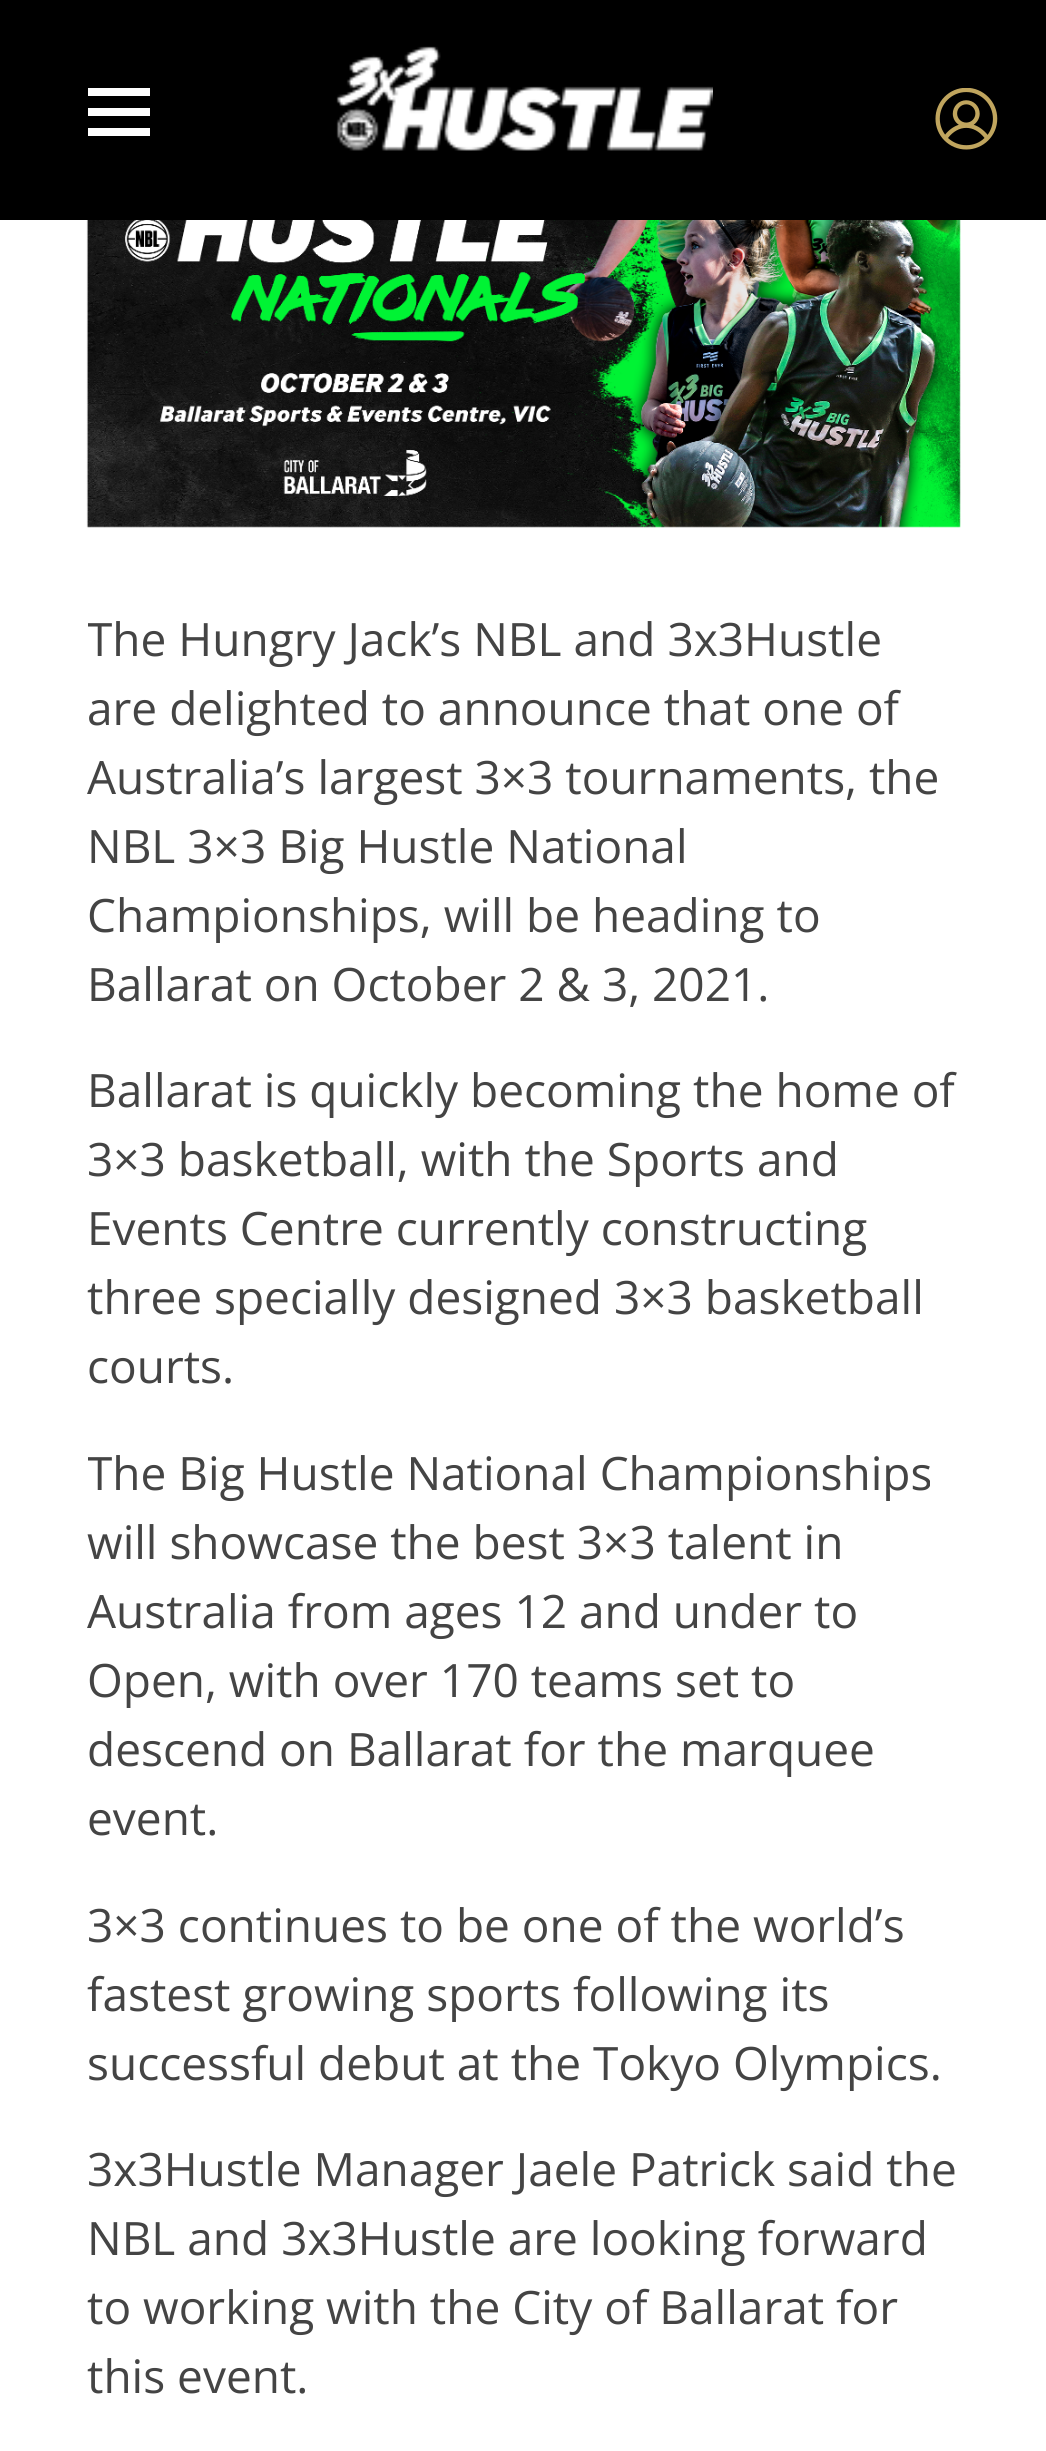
import math
import cairo

surface = cairo.ImageSurface(cairo.Format.RGB24, 1046, 2451)
ctx = cairo.Context(surface)
options = cairo.FontOptions()
options.set_hint_metrics(cairo.HintMetrics.OFF)
options.set_hint_style(cairo.HintStyle.NONE)
ctx.set_font_options(options)
ctx.set_miter_limit(4)


def ink(r, g, b):
    ctx.set_source_rgb(r / 255, g / 255, b / 255)


def write(x, y, s, family, size, color, bold=False, italic=False):
    ctx.select_font_face(family, cairo.FontSlant.ITALIC if italic else cairo.FontSlant.NORMAL, cairo.FontWeight.BOLD if bold else cairo.FontWeight.NORMAL)
    ctx.set_font_size(size)
    ink(*color)
    ctx.move_to(x, y)
    ctx.show_text(s)


def block(x, y, w, h, *color):
    ink(*color)
    ctx.rectangle(x, y, w, h)
    ctx.fill()


def paste(path, x, y, w, h):
    ctx.save()
    ctx.set_source_surface(cairo.ImageSurface.create_from_png(path), x, y)
    ctx.rectangle(x, y, w, h)
    ctx.fill()
    ctx.restore()


s1 = dict(family="Open Sans", size=46, color=(68, 68, 68))

ink(255, 255, 255)
ctx.paint()
block(0, 0, 1046, 220, 0, 0, 0)
block(88, 88, 62, 8, 255, 255, 255)
block(88, 108, 62, 8, 255, 255, 255)
block(88, 128, 62, 8, 255, 255, 255)
paste("pic1.png", 336, 46, 377, 105)
paste("pic2.png", 935, 88, 63, 62)
paste("pic3.png", 86, 220, 875, 308)
ctx.save()
ctx.rectangle(88, 603, 872, 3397)
ctx.clip()
write(87, 656, "The Hungry Jack’s NBL and 3x3Hustle", **s1)
ctx.restore()
write(87, 725, "are delighted to announce that one of", **s1)
write(87, 794, "Australia’s largest 3×3 tournaments, the", **s1)
write(87, 863, "NBL 3×3 Big Hustle National", **s1)
write(87, 932, "Championships, will be heading to", **s1)
write(87, 1001, "Ballarat on October 2 & 3, 2021.", **s1)
write(87, 1107, "Ballarat is quickly becoming the home of", **s1)
write(87, 1176, "3×3 basketball, with the Sports and", **s1)
write(87, 1245, "Events Centre currently constructing", **s1)
write(87, 1314, "three specially designed 3×3 basketball", **s1)
write(87, 1383, "courts.", **s1)
ctx.save()
ctx.rectangle(88, 603, 872, 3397)
ctx.clip()
write(87, 1490, "The Big Hustle National Championships", **s1)
ctx.restore()
write(87, 1559, "will showcase the best 3×3 talent in", **s1)
write(87, 1628, "Australia from ages 12 and under to", **s1)
write(87, 1697, "Open, with over 170 teams set to", **s1)
write(87, 1766, "descend on Ballarat for the marquee", **s1)
write(87, 1835, "event.", **s1)
write(87, 1942, "3×3 continues to be one of the world’s", **s1)
write(87, 2011, "fastest growing sports following its", **s1)
write(87, 2080, "successful debut at the Tokyo Olympics.", **s1)
write(87, 2186, "3x3Hustle Manager Jaele Patrick said the", **s1)
write(87, 2255, "NBL and 3x3Hustle are looking forward", **s1)
write(87, 2324, "to working with the City of Ballarat for", **s1)
write(87, 2393, "this event.", **s1)
surface.write_to_png("screenshot.png")
